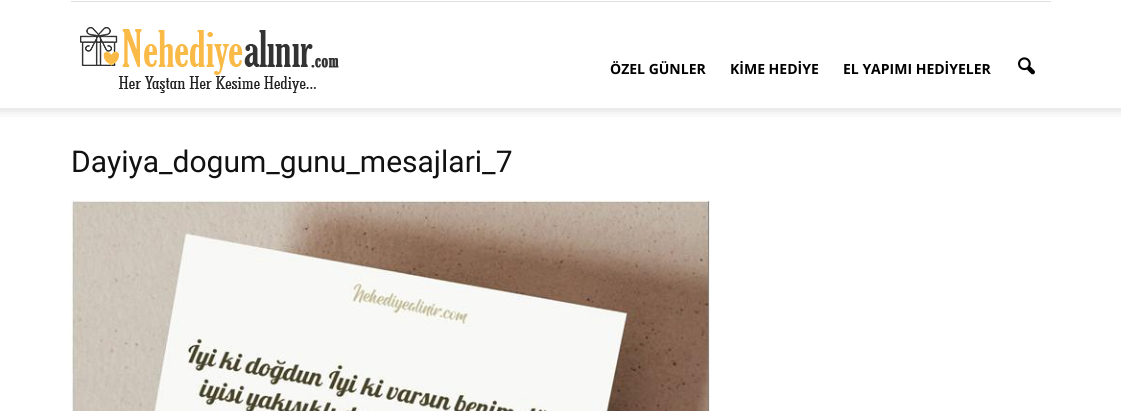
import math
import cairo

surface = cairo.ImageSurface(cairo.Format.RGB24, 1121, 411)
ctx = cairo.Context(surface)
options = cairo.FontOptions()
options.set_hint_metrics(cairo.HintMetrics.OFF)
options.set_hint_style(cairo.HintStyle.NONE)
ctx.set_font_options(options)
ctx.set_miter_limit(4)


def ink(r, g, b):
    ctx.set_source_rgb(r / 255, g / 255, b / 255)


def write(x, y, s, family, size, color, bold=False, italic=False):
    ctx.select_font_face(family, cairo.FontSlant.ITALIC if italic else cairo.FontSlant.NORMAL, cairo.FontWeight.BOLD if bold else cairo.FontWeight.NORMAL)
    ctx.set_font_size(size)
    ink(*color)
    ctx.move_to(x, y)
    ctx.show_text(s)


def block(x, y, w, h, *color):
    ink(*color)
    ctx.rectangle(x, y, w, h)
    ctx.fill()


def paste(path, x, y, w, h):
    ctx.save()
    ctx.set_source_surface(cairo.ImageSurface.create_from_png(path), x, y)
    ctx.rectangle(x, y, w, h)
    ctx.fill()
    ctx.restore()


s1 = dict(family="Open Sans", size=14, color=(0, 0, 0), bold=True)
s2 = dict(family="Roboto", size=30, color=(17, 17, 17))

ink(255, 255, 255)
ctx.paint()
block(71, 1, 980, 1, 224, 224, 224)
paste("pic1.png", 80, 27, 259, 66)
write(610, 74, "ÖZEL GÜNLER", **s1)
write(730, 74, "KİME HEDİYE", **s1)
write(843, 74, "EL YAPIMI HEDİYELER", **s1)
paste("pic2.png", 1018, 57, 17, 18)
paste("pic3.png", 0, 108, 1121, 9)
write(71, 172, "Dayiya_dogum_gunu_mesajlari_7", **s2)
paste("pic4.png", 71, 200, 639, 211)
surface.write_to_png("screenshot.png")
